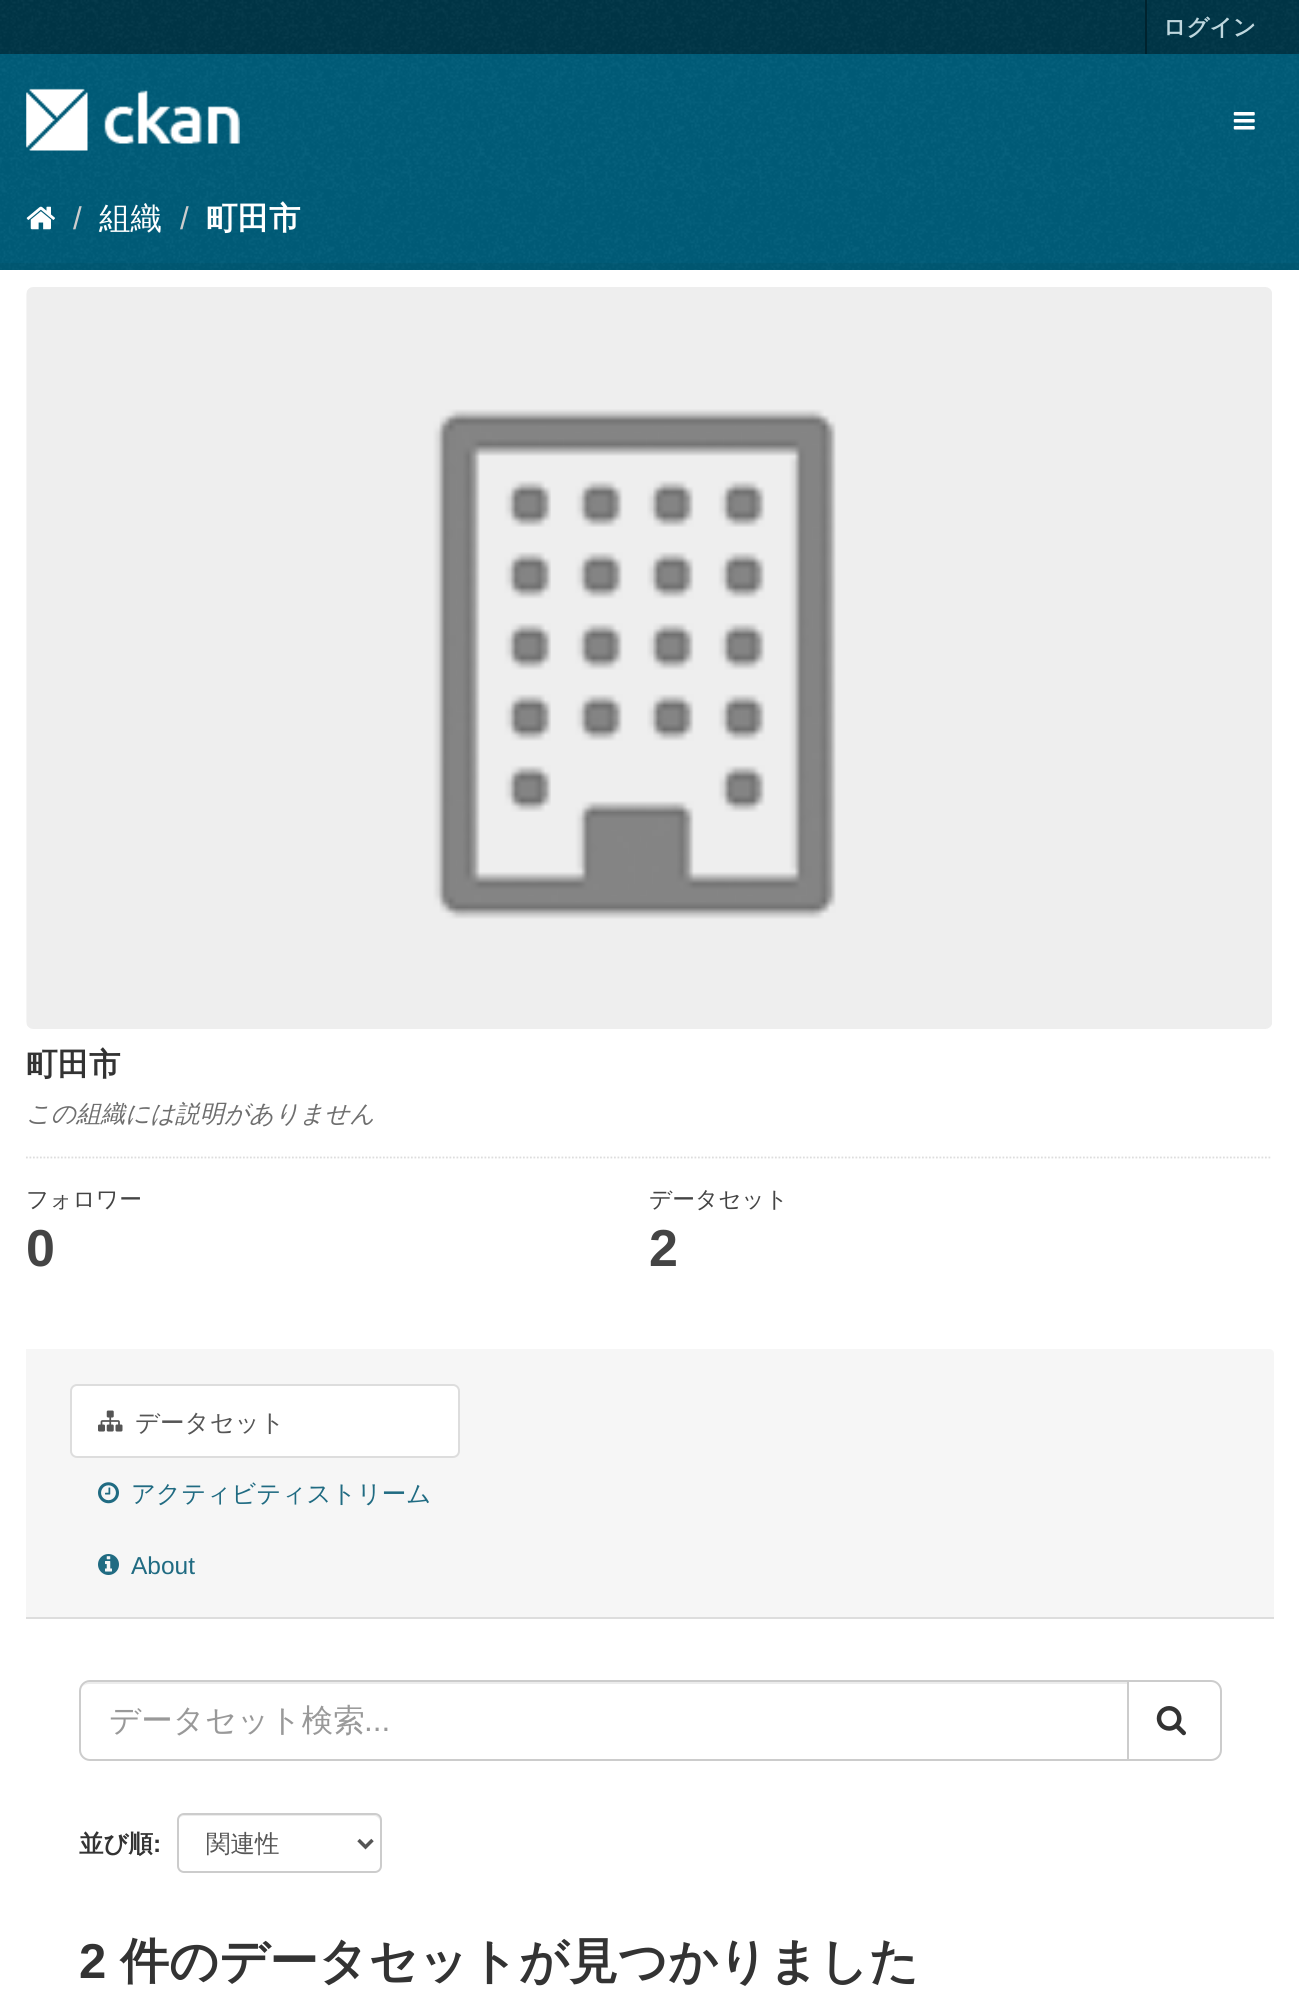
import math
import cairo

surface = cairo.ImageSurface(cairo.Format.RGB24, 1299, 1993)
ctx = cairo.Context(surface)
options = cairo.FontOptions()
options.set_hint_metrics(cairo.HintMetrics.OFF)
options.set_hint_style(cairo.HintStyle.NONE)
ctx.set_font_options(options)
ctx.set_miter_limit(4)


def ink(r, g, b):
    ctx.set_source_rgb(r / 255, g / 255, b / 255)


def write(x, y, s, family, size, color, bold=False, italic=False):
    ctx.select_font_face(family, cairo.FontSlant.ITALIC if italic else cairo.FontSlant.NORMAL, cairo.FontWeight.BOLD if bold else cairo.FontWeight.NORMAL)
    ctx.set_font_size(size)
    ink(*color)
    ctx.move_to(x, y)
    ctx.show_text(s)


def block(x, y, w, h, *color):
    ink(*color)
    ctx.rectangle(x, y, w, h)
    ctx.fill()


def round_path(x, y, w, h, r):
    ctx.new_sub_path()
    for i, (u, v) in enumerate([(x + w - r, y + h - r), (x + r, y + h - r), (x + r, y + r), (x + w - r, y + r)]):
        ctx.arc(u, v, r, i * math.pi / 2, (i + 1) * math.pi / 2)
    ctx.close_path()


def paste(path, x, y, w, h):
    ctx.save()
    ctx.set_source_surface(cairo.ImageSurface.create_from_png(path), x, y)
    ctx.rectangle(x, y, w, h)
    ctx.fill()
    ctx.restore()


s1 = dict(family="WenQuanYi Zen Hei", size=22.75, color=(191, 215, 222), bold=True)
s2 = dict(family="Liberation Sans", size=31.5, color=(204, 204, 204))
s3 = dict(family="WenQuanYi Zen Hei Medium", size=31.5, color=(255, 255, 255))
s4 = dict(family="WenQuanYi Zen Hei", size=31.5, color=(255, 255, 255), bold=True)
s5 = dict(family="WenQuanYi Zen Hei", size=31.5, color=(51, 51, 51), bold=True)
s6 = dict(family="WenQuanYi Zen Hei Medium", size=24.5, color=(110, 110, 110), italic=True)
s7 = dict(family="WenQuanYi Zen Hei Medium", size=22.75, color=(68, 68, 68))
s8 = dict(family="Liberation Sans", size=52, color=(68, 68, 68), bold=True)
s9 = dict(family="WenQuanYi Zen Hei Medium", size=24.5, color=(85, 85, 85))
s10 = dict(family="WenQuanYi Zen Hei Medium", size=24.5, color=(32, 107, 130))
s11 = dict(family="Liberation Sans", size=24.5, color=(32, 107, 130))
s12 = dict(family="WenQuanYi Zen Hei Medium", size=31.5, color=(153, 153, 153))
s13 = dict(family="Liberation Sans", size=31.5, color=(153, 153, 153))
s14 = dict(family="WenQuanYi Zen Hei", size=24.5, color=(51, 51, 51), bold=True)
s15 = dict(family="Liberation Sans", size=24.5, color=(51, 51, 51), bold=True)
s16 = dict(family="Liberation Sans", size=49, color=(51, 51, 51), bold=True)
s17 = dict(family="WenQuanYi Zen Hei", size=49, color=(51, 51, 51), bold=True)

ink(0, 93, 122)
ctx.paint()
paste("pic1.png", 0, 189, 1299, 81)
block(0, 0, 1299, 54, 0, 54, 71)
paste("pic2.png", 0, 0, 1299, 54)
block(1145, 0, 2, 54, 0, 35, 46)
write(1163, 35, "ログイン", **s1)
paste("pic3.png", 0, 54, 1299, 135)
paste("pic4.png", 26, 88, 214, 63)
paste("pic5.png", 1233, 112, 22, 18)
paste("pic6.png", 26, 206, 29, 24)
write(73, 229, "/", **s2)
write(99, 229, "組織", **s3)
write(180, 229, "/", **s2)
write(206, 229, "町田市", **s4)
ctx.rectangle(-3.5, 266.5, 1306, 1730)
ctx.set_source_rgba(0, 0, 0, 0.05)
ctx.set_line_width(7)
ctx.stroke()
block(0, 270, 1299, 1723, 255, 255, 255)
paste("pic7.png", 26, 287, 1246, 742)
write(26, 1075, "町田市", **s5)
write(26, 1122, "この組織には説明がありません", **s6)
ctx.new_path()
ctx.move_to(26, 1157.5)
ctx.line_to(1272, 1157.5)
ink(221, 221, 221)
ctx.set_line_width(1.8)
ctx.set_dash([1.75, 1.75])
ctx.stroke()
write(26, 1207, "フォロワー", **s7)
write(26, 1266, "0", **s8)
write(649, 1207, "データセット", **s7)
write(649, 1266, "2", **s8)
ink(246, 246, 246)
ctx.new_path()
ctx.move_to(26, 1349)
ctx.line_to(1269, 1349)
ctx.curve_to(1272, 1349, 1274, 1351, 1274, 1354)
ctx.line_to(1274, 1619)
ctx.line_to(26, 1619)
ctx.close_path()
ctx.fill()
block(26, 1617, 1248, 2, 221, 221, 221)
ink(255, 255, 255)
round_path(71, 1385, 388, 72, 6)
ctx.fill_preserve()
ink(221, 221, 221)
ctx.set_line_width(2)
ctx.set_dash([])
ctx.stroke()
paste("pic8.png", 98, 1410, 25, 22)
write(135, 1431, "データセット", **s9)
paste("pic9.png", 98, 1482, 21, 22)
write(131, 1502, "アクティビティストリーム", **s10)
paste("pic10.png", 98, 1554, 21, 21)
write(131, 1574, "About", **s11)
ink(236, 236, 236)
ctx.new_path()
ctx.move_to(89, 1684)
ctx.line_to(1127, 1684)
ctx.line_to(1127, 1682)
ctx.line_to(90, 1682)
ctx.curve_to(87, 1682, 84, 1684, 82, 1687)
ctx.curve_to(84, 1685, 86, 1684, 89, 1684)
ctx.close_path()
ctx.fill()
ctx.new_path()
ctx.move_to(90, 1681)
ctx.line_to(1128, 1681)
ctx.line_to(1128, 1760)
ctx.line_to(90, 1760)
ctx.curve_to(84.5, 1760, 80, 1755.5, 80, 1750)
ctx.line_to(80, 1691)
ctx.curve_to(80, 1685.5, 84.5, 1681, 90, 1681)
ctx.close_path()
ink(204, 204, 204)
ctx.stroke()
write(109, 1731, "データセット検索", **s12)
write(364, 1731, "...", **s13)
ink(255, 255, 255)
ctx.new_path()
ctx.move_to(1128, 1681)
ctx.line_to(1211, 1681)
ctx.curve_to(1216.5, 1681, 1221, 1685.5, 1221, 1691)
ctx.line_to(1221, 1750)
ctx.curve_to(1221, 1755.5, 1216.5, 1760, 1211, 1760)
ctx.line_to(1128, 1760)
ctx.close_path()
ctx.fill_preserve()
ink(204, 204, 204)
ctx.stroke()
paste("pic11.png", 1156, 1706, 30, 30)
write(79, 1852, "並び順", **s14)
write(153, 1852, ":", **s15)
ink(236, 236, 236)
ctx.new_path()
ctx.move_to(184, 1816)
ctx.line_to(374, 1816)
ctx.curve_to(377, 1816, 380, 1819, 380, 1822)
ctx.line_to(380, 1820)
ctx.curve_to(380, 1817, 378, 1815, 375, 1815)
ctx.line_to(184, 1815)
ctx.curve_to(182, 1815, 180, 1817, 179, 1819)
ctx.curve_to(180, 1817, 182, 1816, 184, 1816)
ctx.close_path()
ctx.fill()
round_path(178, 1814, 203, 58, 6)
ink(204, 204, 204)
ctx.stroke()
ctx.new_path()
ctx.move_to(358.5, 1840)
ctx.line_to(365.5, 1847)
ctx.line_to(372.5, 1840)
ink(85, 85, 85)
ctx.set_line_width(3.5)
ctx.stroke()
write(206, 1852, "関連性", **s9)
write(79, 1978, "2", **s16)
write(120, 1978, "件のデータセットが見つかりました", **s17)
surface.write_to_png("screenshot.png")
